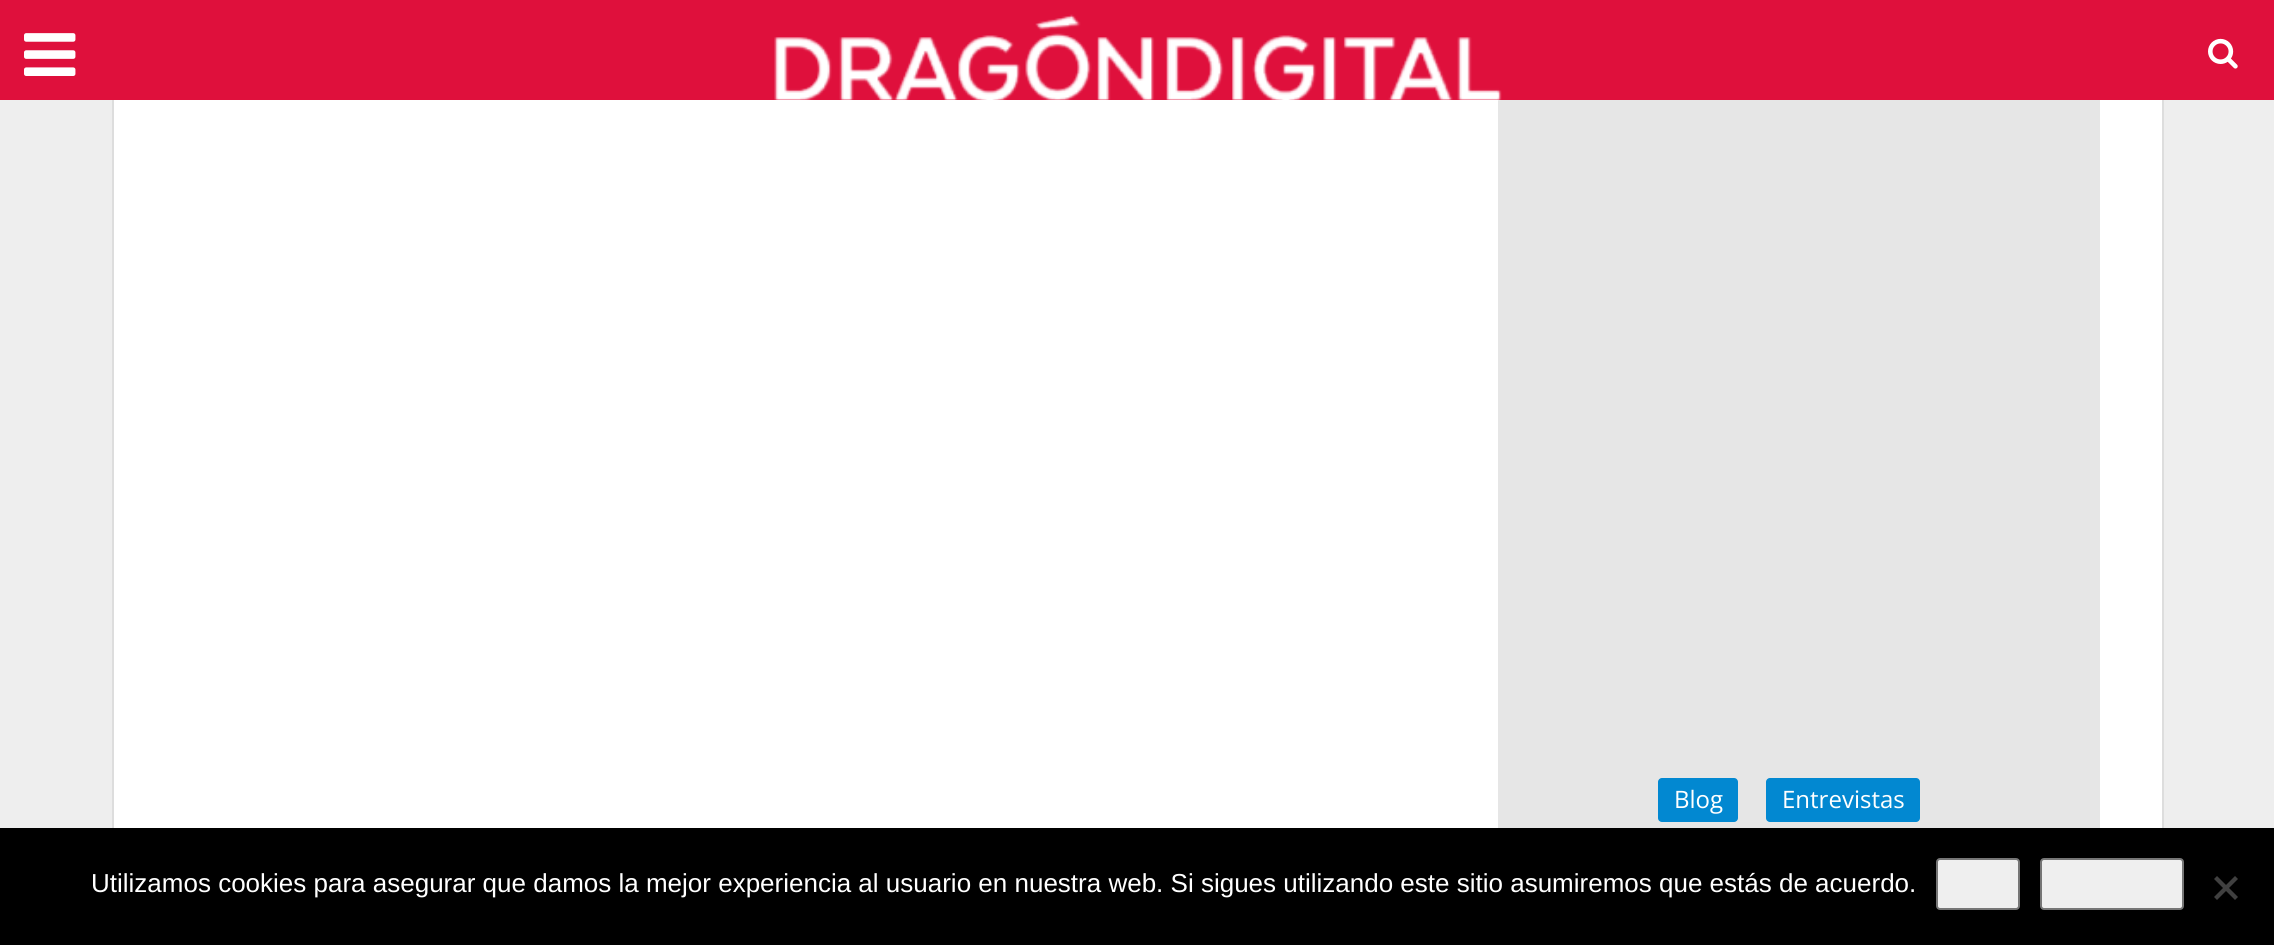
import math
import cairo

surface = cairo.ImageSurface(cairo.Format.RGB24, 2274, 945)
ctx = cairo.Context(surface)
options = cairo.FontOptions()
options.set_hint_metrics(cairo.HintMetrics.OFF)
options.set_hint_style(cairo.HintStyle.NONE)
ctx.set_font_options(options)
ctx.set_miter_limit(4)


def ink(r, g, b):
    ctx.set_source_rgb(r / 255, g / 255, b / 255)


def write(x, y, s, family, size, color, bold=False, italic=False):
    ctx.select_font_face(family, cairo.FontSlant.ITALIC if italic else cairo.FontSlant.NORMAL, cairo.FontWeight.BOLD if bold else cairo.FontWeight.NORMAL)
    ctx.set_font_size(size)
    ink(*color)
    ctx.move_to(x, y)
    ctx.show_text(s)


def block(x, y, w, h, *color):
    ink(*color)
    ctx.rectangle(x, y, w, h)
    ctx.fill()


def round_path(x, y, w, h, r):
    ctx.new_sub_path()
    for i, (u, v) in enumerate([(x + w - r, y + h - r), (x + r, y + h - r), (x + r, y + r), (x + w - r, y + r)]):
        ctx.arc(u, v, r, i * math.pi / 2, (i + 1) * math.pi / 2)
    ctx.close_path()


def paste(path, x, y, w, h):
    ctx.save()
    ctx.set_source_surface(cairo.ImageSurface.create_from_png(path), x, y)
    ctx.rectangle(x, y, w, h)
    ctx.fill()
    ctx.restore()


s1 = dict(family="Open Sans", size=24, color=(255, 255, 255))
s2 = dict(family="Liberation Sans", size=26, color=(255, 255, 255))

ink(238, 238, 238)
ctx.paint()
ctx.rectangle(113, -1, 2050, 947)
ink(221, 221, 221)
ctx.stroke()
block(0, 0, 2274, 100, 223, 16, 60)
paste("pic1.png", 24, 33, 52, 43)
block(114, 100, 2048, 728, 255, 255, 255)
block(1498, 100, 602, 728, 230, 230, 230)
paste("pic2.png", 774, 14, 728, 87)
paste("pic3.png", 2208, 38, 30, 31)
ink(2, 136, 209)
round_path(1658, 778, 80, 44, 4)
ctx.fill()
write(1674, 808, "Blog", **s1)
ink(2, 136, 209)
round_path(1766, 778, 154, 44, 4)
ctx.fill()
write(1782, 808, "Entrevistas", **s1)
block(0, 828, 2274, 117, 0, 0, 0)
write(91, 892, "Utilizamos cookies para asegurar que damos la mejor experiencia al usuario en nuestra web. Si sigues utilizando este sitio asumiremos que estás de acuerdo.", **s2)
ink(239, 239, 239)
round_path(1937, 859, 82, 50, 3)
ctx.fill_preserve()
ink(118, 118, 118)
ctx.stroke()
ink(239, 239, 239)
round_path(2041, 859, 142, 50, 3)
ctx.fill_preserve()
ink(118, 118, 118)
ctx.stroke()
ink(64, 64, 64)
ctx.new_path()
ctx.move_to(2235, 876)
ctx.line_to(2238, 879)
ctx.line_to(2217, 900)
ctx.line_to(2214, 897)
ctx.close_path()
ctx.fill()
ctx.new_path()
ctx.move_to(2214, 879)
ctx.line_to(2217, 876)
ctx.line_to(2238, 897)
ctx.line_to(2235, 900)
ctx.close_path()
ctx.fill()
surface.write_to_png("screenshot.png")
